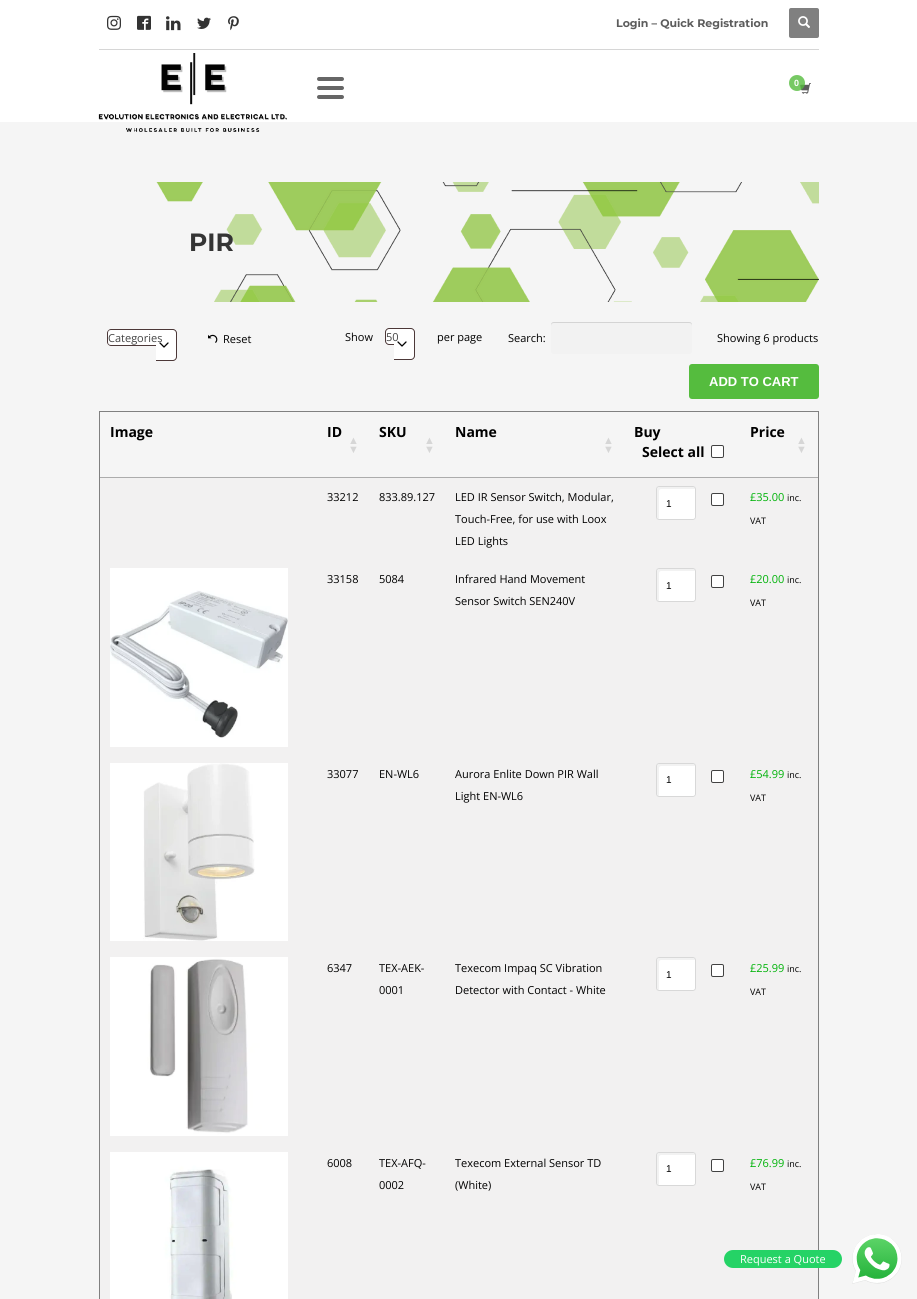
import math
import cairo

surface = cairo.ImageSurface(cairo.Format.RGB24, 917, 1299)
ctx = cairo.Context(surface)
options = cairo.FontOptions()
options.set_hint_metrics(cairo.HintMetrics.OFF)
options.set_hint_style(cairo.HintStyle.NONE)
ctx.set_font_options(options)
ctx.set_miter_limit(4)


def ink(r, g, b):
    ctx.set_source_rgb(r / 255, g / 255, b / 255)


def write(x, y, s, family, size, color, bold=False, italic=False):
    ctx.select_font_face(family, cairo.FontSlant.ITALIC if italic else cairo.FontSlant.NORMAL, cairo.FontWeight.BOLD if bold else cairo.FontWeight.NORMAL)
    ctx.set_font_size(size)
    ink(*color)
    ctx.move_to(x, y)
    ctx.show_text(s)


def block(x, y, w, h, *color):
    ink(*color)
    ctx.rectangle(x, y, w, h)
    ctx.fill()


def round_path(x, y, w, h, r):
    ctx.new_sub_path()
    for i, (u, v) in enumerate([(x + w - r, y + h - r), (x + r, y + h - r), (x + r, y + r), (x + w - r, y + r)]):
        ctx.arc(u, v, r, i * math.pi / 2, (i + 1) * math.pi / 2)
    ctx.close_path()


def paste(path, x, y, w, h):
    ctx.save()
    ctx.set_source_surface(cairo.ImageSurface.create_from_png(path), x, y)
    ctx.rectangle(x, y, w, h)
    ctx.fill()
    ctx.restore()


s1 = dict(family="Montserrat", size=11, color=(92, 92, 92), bold=True)
s2 = dict(family="Liberation Sans", size=9, color=(255, 255, 255), bold=True)
s3 = dict(family="Montserrat", size=25, color=(52, 52, 52), bold=True)
s4 = dict(family="Open Sans", size=11, color=(68, 68, 68))
s5 = dict(family="Open Sans", size=11, color=(0, 0, 0))
s6 = dict(family="Liberation Sans", size=13, color=(255, 255, 255), bold=True)
s7 = dict(family="Open Sans", size=14, color=(0, 0, 0), bold=True)
s8 = dict(family="Liberation Sans", size=11, color=(214, 214, 214), bold=True)
s9 = dict(family="Liberation Sans", size=10, color=(0, 0, 0))
s10 = dict(family="Open Sans", size=11, color=(0, 179, 9))
s11 = dict(family="Open Sans", size=9, color=(0, 0, 0))
s12 = dict(family="Open Sans", size=11, color=(255, 255, 255))

ink(245, 245, 245)
ctx.paint()
block(0, 0, 917, 122, 255, 255, 255)
paste("pic1.png", 107, 15, 14, 15)
paste("pic2.png", 137, 15, 14, 15)
paste("pic3.png", 166, 16, 15, 15)
paste("pic4.png", 197, 17, 14, 12)
paste("pic5.png", 228, 16, 11, 15)
write(616, 27, "Login – Quick Registration", **s1)
ink(128, 128, 128)
round_path(789, 8, 30, 30, 2)
ctx.fill()
paste("pic6.png", 798, 16, 12, 12)
block(99, 49, 720, 1, 214, 214, 214)
paste("pic7.png", 98, 53, 189, 79)
ink(102, 102, 102)
round_path(317, 77, 27, 4, 2)
ctx.fill()
round_path(317, 86, 27, 4, 2)
ctx.fill()
round_path(317, 95, 27, 4, 2)
ctx.fill()
paste("pic8.png", 800, 83, 11, 11)
ctx.set_source_rgba(0.333, 0.737, 0.243, 0.8)
ctx.arc(797, 83, 8, 0, 2 * math.pi)
ctx.fill()
write(794, 86, "0", **s2)
paste("pic9.png", 156, 182, 663, 120)
write(189, 251, "PIR", **s3)
ink(255, 255, 255)
ctx.new_path()
ctx.move_to(111, 329)
ctx.line_to(162, 329)
ctx.line_to(162, 346)
ctx.line_to(111, 346)
ctx.curve_to(109, 346, 107, 344, 107, 342)
ctx.line_to(107, 333)
ctx.curve_to(107, 331, 109, 329, 111, 329)
ctx.close_path()
ctx.fill()
ctx.set_source_rgba(0.125, 0.027, 0.027, 0.8)
ctx.set_fill_rule(cairo.FillRule.EVEN_ODD)
ctx.new_path()
ctx.move_to(111, 329)
ctx.line_to(162, 329)
ctx.line_to(162, 346)
ctx.line_to(111, 346)
ctx.curve_to(109, 346, 107, 344, 107, 342)
ctx.line_to(107, 333)
ctx.curve_to(107, 331, 109, 329, 111, 329)
ctx.close_path()
ctx.move_to(111, 330)
ctx.line_to(162, 330)
ctx.line_to(162, 345)
ctx.line_to(111, 345)
ctx.curve_to(109, 345, 108, 344, 108, 342)
ctx.line_to(108, 333)
ctx.curve_to(108, 331, 109, 330, 111, 330)
ctx.close_path()
ctx.fill()
ink(255, 255, 255)
ctx.new_path()
ctx.move_to(156, 329)
ctx.line_to(173, 329)
ctx.curve_to(175, 329, 177, 331, 177, 333)
ctx.line_to(177, 357)
ctx.curve_to(177, 359, 175, 361, 173, 361)
ctx.line_to(156, 361)
ctx.close_path()
ctx.fill()
ctx.set_source_rgba(0.125, 0.027, 0.027, 0.8)
ctx.new_path()
ctx.move_to(156, 329)
ctx.line_to(173, 329)
ctx.curve_to(175, 329, 177, 331, 177, 333)
ctx.line_to(177, 357)
ctx.curve_to(177, 359, 175, 361, 173, 361)
ctx.line_to(156, 361)
ctx.close_path()
ctx.move_to(156, 330)
ctx.line_to(173, 330)
ctx.curve_to(174.5, 330, 176, 331.5, 176, 333)
ctx.line_to(176, 357)
ctx.curve_to(176, 358.5, 174.5, 360, 173, 360)
ctx.line_to(156, 360)
ctx.close_path()
ctx.fill()
write(108, 342, "Categories", **s4)
ctx.new_path()
ctx.move_to(160, 343)
ctx.line_to(164, 347)
ctx.line_to(168, 343)
ink(0, 0, 0)
ctx.set_line_width(1.3)
ctx.set_line_cap(cairo.LineCap.ROUND)
ctx.set_line_join(cairo.LineJoin.ROUND)
ctx.stroke()
paste("pic10.png", 208, 334, 10, 9)
write(223, 343, "Reset", **s5)
write(345, 341, "Show", **s5)
ink(255, 255, 255)
ctx.new_path()
ctx.move_to(389, 328)
ctx.line_to(399, 328)
ctx.line_to(399, 345)
ctx.line_to(389, 345)
ctx.curve_to(387, 345, 385, 343, 385, 341)
ctx.line_to(385, 332)
ctx.curve_to(385, 330, 387, 328, 389, 328)
ctx.close_path()
ctx.fill()
ctx.set_source_rgba(0.125, 0.027, 0.027, 0.8)
ctx.new_path()
ctx.move_to(389, 328)
ctx.line_to(399, 328)
ctx.line_to(399, 345)
ctx.line_to(389, 345)
ctx.curve_to(387, 345, 385, 343, 385, 341)
ctx.line_to(385, 332)
ctx.curve_to(385, 330, 387, 328, 389, 328)
ctx.close_path()
ctx.move_to(389, 329)
ctx.line_to(399, 329)
ctx.line_to(399, 344)
ctx.line_to(389, 344)
ctx.curve_to(387.5, 344, 386, 342.5, 386, 341)
ctx.line_to(386, 332)
ctx.curve_to(386, 330.5, 387.5, 329, 389, 329)
ctx.close_path()
ctx.fill()
ink(255, 255, 255)
ctx.new_path()
ctx.move_to(394, 328)
ctx.line_to(411, 328)
ctx.curve_to(413, 328, 415, 330, 415, 332)
ctx.line_to(415, 356)
ctx.curve_to(415, 358, 413, 360, 411, 360)
ctx.line_to(394, 360)
ctx.close_path()
ctx.fill()
ctx.set_source_rgba(0.125, 0.027, 0.027, 0.8)
ctx.new_path()
ctx.move_to(394, 328)
ctx.line_to(411, 328)
ctx.curve_to(413, 328, 415, 330, 415, 332)
ctx.line_to(415, 356)
ctx.curve_to(415, 358, 413, 360, 411, 360)
ctx.line_to(394, 360)
ctx.close_path()
ctx.move_to(394, 329)
ctx.line_to(411, 329)
ctx.curve_to(412.5, 329, 414, 330.5, 414, 332)
ctx.line_to(414, 356)
ctx.curve_to(414, 357.5, 412.5, 359, 411, 359)
ctx.line_to(394, 359)
ctx.close_path()
ctx.fill()
write(386, 341, "50", **s4)
ctx.new_path()
ctx.move_to(398, 342)
ctx.line_to(402, 346)
ctx.line_to(406, 342)
ink(0, 0, 0)
ctx.stroke()
write(437, 341, "per page", **s5)
write(508, 342, "Search:", **s5)
ink(242, 242, 242)
round_path(551, 322, 141, 32, 3)
ctx.fill()
ink(212, 212, 212)
ctx.set_fill_rule(cairo.FillRule.WINDING)
ctx.new_path()
ctx.move_to(554, 323)
ctx.line_to(689, 323)
ctx.curve_to(691, 323, 692, 324, 692, 326)
ctx.line_to(692, 325)
ctx.curve_to(692, 323, 691, 322, 689, 322)
ctx.line_to(554, 322)
ctx.curve_to(552, 322, 551, 323, 551, 325)
ctx.line_to(551, 326)
ctx.curve_to(551, 324, 552, 323, 554, 323)
ctx.close_path()
ctx.fill()
write(717, 342, "Showing 6 products", **s5)
ink(85, 188, 62)
round_path(689, 364, 130, 35, 3)
ctx.fill()
write(709, 386, "ADD TO CART", **s6)
block(99, 411, 720, 1, 128, 128, 128)
ctx.new_path()
ctx.move_to(819, 411)
ctx.line_to(819, 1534)
ctx.line_to(818, 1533)
ctx.line_to(818, 412)
ctx.close_path()
ctx.fill()
ctx.new_path()
ctx.move_to(99, 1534)
ctx.line_to(99, 411)
ctx.line_to(100, 412)
ctx.line_to(100, 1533)
ctx.close_path()
ctx.fill()
block(100, 477, 345, 1, 172, 172, 172)
write(110, 437, "Image", **s7)
write(327, 437, "ID", **s7)
write(348, 444, "▲", **s8)
write(348, 453, "▼", **s8)
write(379, 437, "SKU", **s7)
write(424, 444, "▲", **s8)
write(424, 453, "▼", **s8)
write(455, 437, "Name", **s7)
write(603, 444, "▲", **s8)
write(603, 453, "▼", **s8)
block(445, 477, 373, 1, 172, 172, 172)
write(634, 437, "Buy", **s7)
write(642, 457, "Select all", **s7)
ink(255, 255, 255)
round_path(711.5, 445.5, 12, 12, 1.5)
ctx.fill_preserve()
ink(66, 66, 66)
ctx.set_line_width(1)
ctx.set_line_cap(cairo.LineCap.BUTT)
ctx.set_line_join(cairo.LineJoin.MITER)
ctx.stroke()
write(750, 437, "Price", **s7)
write(796, 444, "▲", **s8)
write(796, 453, "▼", **s8)
block(100, 478, 718, 82, 242, 241, 241)
write(327, 501, "33212", **s5)
write(379, 501, "833.89.127", **s5)
write(455, 501, "LED IR Sensor Switch, Modular,", **s5)
write(455, 523, "Touch-Free, for use with Loox", **s5)
write(455, 545, "LED Lights", **s5)
ink(255, 255, 255)
round_path(656, 486, 40, 34, 3)
ctx.fill()
ink(242, 242, 242)
ctx.new_path()
ctx.move_to(661, 489)
ctx.line_to(695, 489)
ctx.curve_to(695, 488, 694, 487, 693, 487)
ctx.line_to(659, 487)
ctx.curve_to(658, 487, 657, 488, 657, 489)
ctx.line_to(657, 517)
ctx.curve_to(657, 518, 658, 519, 659, 519)
ctx.line_to(659, 491)
ctx.curve_to(659, 490, 660, 489, 661, 489)
ctx.close_path()
ctx.fill()
round_path(656.5, 486.5, 39, 33, 2.5)
ink(216, 216, 216)
ctx.stroke()
write(666, 507, "1", **s9)
ink(255, 255, 255)
round_path(711.5, 493.5, 12, 12, 1.5)
ctx.fill_preserve()
ink(66, 66, 66)
ctx.stroke()
write(750, 501, "£35.00", **s10)
write(787, 501, "inc.", **s11)
write(750, 524, "VAT", **s11)
block(100, 560, 718, 195, 242, 241, 241)
paste("pic11.png", 110, 568, 178, 179)
write(327, 583, "33158", **s5)
write(379, 583, "5084", **s5)
write(455, 583, "Infrared Hand Movement", **s5)
write(455, 605, "Sensor Switch SEN240V", **s5)
ink(255, 255, 255)
round_path(656, 568, 40, 34, 3)
ctx.fill()
ink(242, 242, 242)
ctx.new_path()
ctx.move_to(661, 571)
ctx.line_to(695, 571)
ctx.curve_to(695, 570, 694, 569, 693, 569)
ctx.line_to(659, 569)
ctx.curve_to(658, 569, 657, 570, 657, 571)
ctx.line_to(657, 599)
ctx.curve_to(657, 600, 658, 601, 659, 601)
ctx.line_to(659, 573)
ctx.curve_to(659, 572, 660, 571, 661, 571)
ctx.close_path()
ctx.fill()
round_path(656.5, 568.5, 39, 33, 2.5)
ink(216, 216, 216)
ctx.stroke()
write(666, 589, "1", **s9)
ink(255, 255, 255)
round_path(711.5, 575.5, 12, 12, 1.5)
ctx.fill_preserve()
ink(66, 66, 66)
ctx.stroke()
write(750, 583, "£20.00", **s10)
write(787, 583, "inc.", **s11)
write(750, 606, "VAT", **s11)
block(100, 755, 718, 194, 242, 241, 241)
paste("pic12.png", 110, 763, 178, 178)
write(327, 778, "33077", **s5)
write(379, 778, "EN-WL6", **s5)
write(455, 778, "Aurora Enlite Down PIR Wall", **s5)
write(455, 800, "Light EN-WL6", **s5)
ink(255, 255, 255)
round_path(656, 763, 40, 34, 3)
ctx.fill()
ink(242, 242, 242)
ctx.new_path()
ctx.move_to(661, 766)
ctx.line_to(695, 766)
ctx.curve_to(695, 765, 694, 764, 693, 764)
ctx.line_to(659, 764)
ctx.curve_to(658, 764, 657, 765, 657, 766)
ctx.line_to(657, 794)
ctx.curve_to(657, 795, 658, 796, 659, 796)
ctx.line_to(659, 768)
ctx.curve_to(659, 767, 660, 766, 661, 766)
ctx.close_path()
ctx.fill()
round_path(656.5, 763.5, 39, 33, 2.5)
ink(216, 216, 216)
ctx.stroke()
write(666, 783, "1", **s9)
ink(255, 255, 255)
round_path(711.5, 770.5, 12, 12, 1.5)
ctx.fill_preserve()
ink(66, 66, 66)
ctx.stroke()
write(750, 778, "£54.99", **s10)
write(787, 778, "inc.", **s11)
write(750, 801, "VAT", **s11)
block(100, 949, 718, 195, 242, 241, 241)
paste("pic13.png", 110, 957, 178, 179)
write(327, 972, "6347", **s5)
write(379, 972, "TEX-AEK-", **s5)
write(379, 994, "0001", **s5)
write(455, 972, "Texecom Impaq SC Vibration", **s5)
write(455, 994, "Detector with Contact - White", **s5)
ink(255, 255, 255)
round_path(656, 957, 40, 34, 3)
ctx.fill()
ink(242, 242, 242)
ctx.new_path()
ctx.move_to(661, 960)
ctx.line_to(695, 960)
ctx.curve_to(695, 959, 694, 958, 693, 958)
ctx.line_to(659, 958)
ctx.curve_to(658, 958, 657, 959, 657, 960)
ctx.line_to(657, 988)
ctx.curve_to(657, 989, 658, 990, 659, 990)
ctx.line_to(659, 962)
ctx.curve_to(659, 961, 660, 960, 661, 960)
ctx.close_path()
ctx.fill()
round_path(656.5, 957.5, 39, 33, 2.5)
ink(216, 216, 216)
ctx.stroke()
write(666, 978, "1", **s9)
ink(255, 255, 255)
round_path(711.5, 964.5, 12, 12, 1.5)
ctx.fill_preserve()
ink(66, 66, 66)
ctx.stroke()
write(750, 972, "£25.99", **s10)
write(787, 972, "inc.", **s11)
write(750, 995, "VAT", **s11)
block(100, 1144, 718, 155, 242, 241, 241)
paste("pic14.png", 110, 1152, 178, 147)
write(327, 1167, "6008", **s5)
write(379, 1167, "TEX-AFQ-", **s5)
write(379, 1189, "0002", **s5)
write(455, 1167, "Texecom External Sensor TD", **s5)
write(455, 1189, "(White)", **s5)
ink(255, 255, 255)
round_path(656, 1152, 40, 34, 3)
ctx.fill()
ink(242, 242, 242)
ctx.new_path()
ctx.move_to(661, 1155)
ctx.line_to(695, 1155)
ctx.curve_to(695, 1154, 694, 1153, 693, 1153)
ctx.line_to(659, 1153)
ctx.curve_to(658, 1153, 657, 1154, 657, 1155)
ctx.line_to(657, 1183)
ctx.curve_to(657, 1184, 658, 1185, 659, 1185)
ctx.line_to(659, 1157)
ctx.curve_to(659, 1156, 660, 1155, 661, 1155)
ctx.close_path()
ctx.fill()
round_path(656.5, 1152.5, 39, 33, 2.5)
ink(216, 216, 216)
ctx.stroke()
write(666, 1172, "1", **s9)
ink(255, 255, 255)
round_path(711.5, 1159.5, 12, 12, 1.5)
ctx.fill_preserve()
ink(66, 66, 66)
ctx.stroke()
write(750, 1167, "£76.99", **s10)
write(787, 1167, "inc.", **s11)
write(750, 1190, "VAT", **s11)
ink(37, 211, 102)
round_path(724, 1250, 118, 18, 9)
ctx.fill()
write(740, 1263, "Request a Quote", **s12)
paste("pic15.png", 852, 1234, 50, 50)
surface.write_to_png("screenshot.png")
